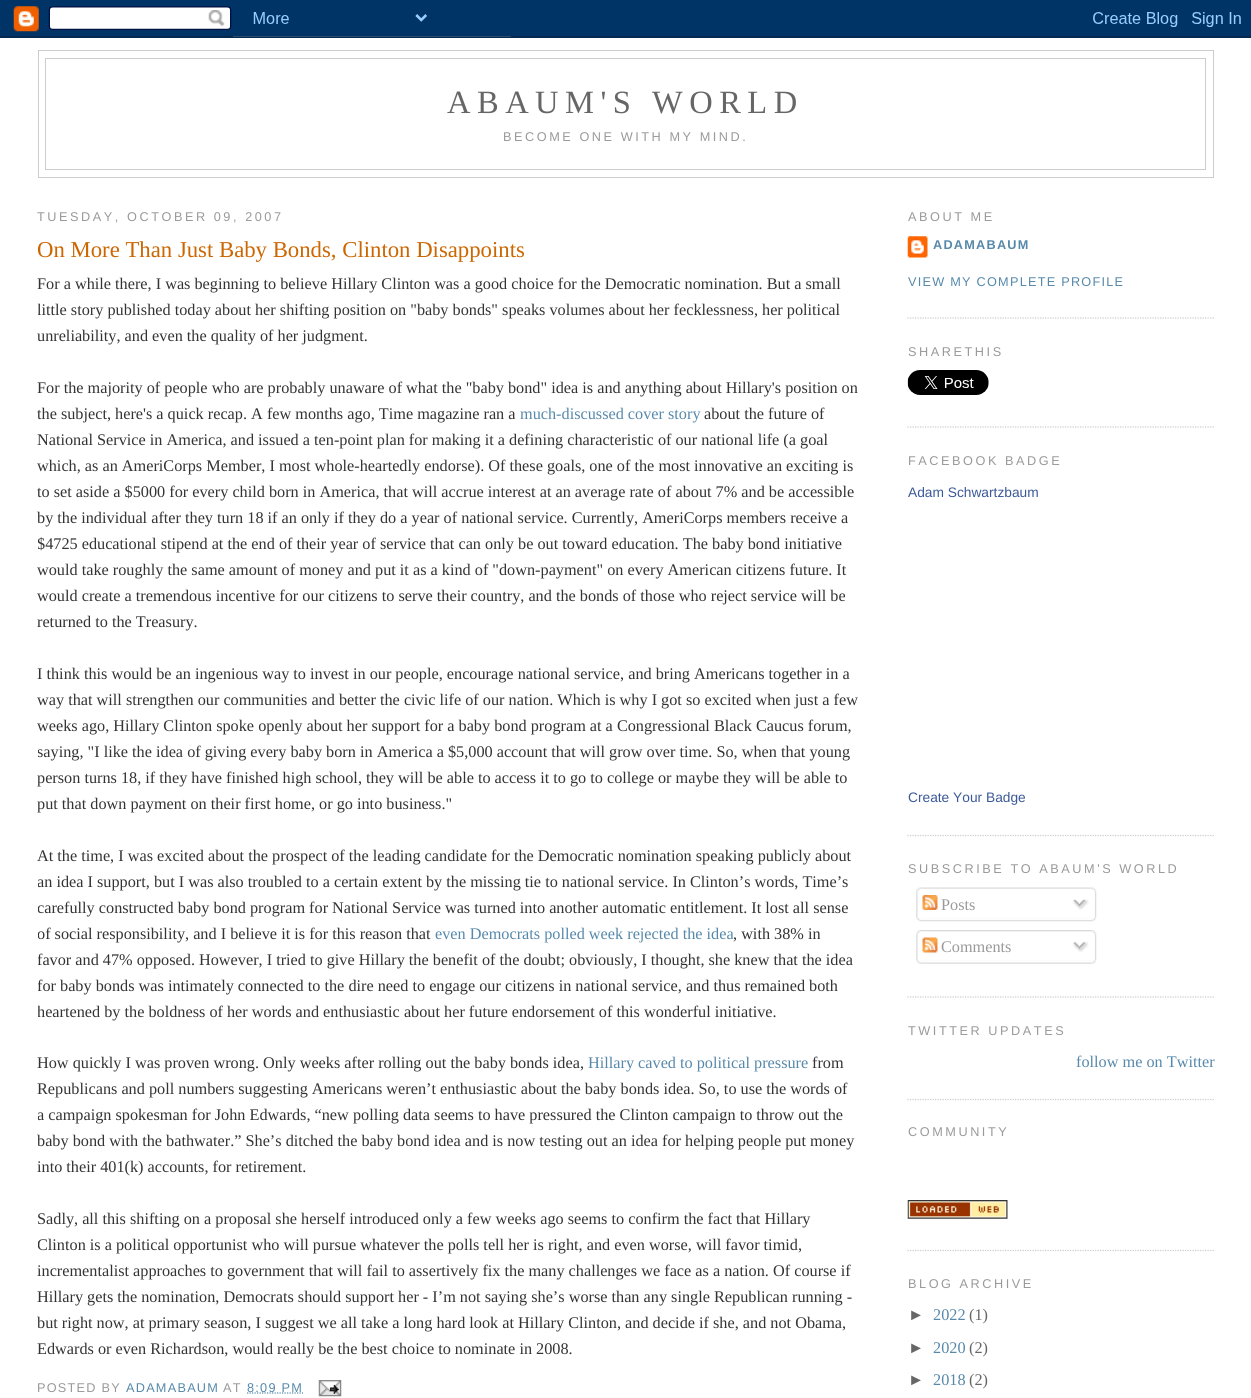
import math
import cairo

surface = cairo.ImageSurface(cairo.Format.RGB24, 1251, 1398)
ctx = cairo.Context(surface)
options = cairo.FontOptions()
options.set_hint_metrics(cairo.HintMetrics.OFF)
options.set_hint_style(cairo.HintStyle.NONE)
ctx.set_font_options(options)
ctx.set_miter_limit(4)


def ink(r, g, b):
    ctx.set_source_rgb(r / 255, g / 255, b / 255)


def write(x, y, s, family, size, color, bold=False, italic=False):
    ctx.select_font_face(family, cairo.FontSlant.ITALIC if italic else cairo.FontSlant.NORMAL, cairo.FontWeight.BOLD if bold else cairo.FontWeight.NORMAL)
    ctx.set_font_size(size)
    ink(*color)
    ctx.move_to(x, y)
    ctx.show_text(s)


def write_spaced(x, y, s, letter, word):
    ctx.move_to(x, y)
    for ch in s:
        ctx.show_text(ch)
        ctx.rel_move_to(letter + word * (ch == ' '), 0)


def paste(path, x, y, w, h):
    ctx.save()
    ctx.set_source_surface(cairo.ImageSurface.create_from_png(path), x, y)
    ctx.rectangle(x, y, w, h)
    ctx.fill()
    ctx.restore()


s1 = dict(family="Liberation Serif", size=22.75, color=(204, 102, 0))
s2 = dict(family="Liberation Serif", size=16.25, color=(51, 51, 51))
s3 = dict(family="Liberation Serif", size=16.25, color=(85, 136, 170))
s4 = dict(family="Liberation Sans", size=13.75, color=(59, 89, 152))
s5 = dict(family="Liberation Serif", size=16.25, color=(153, 153, 153))
s6 = dict(family="Liberation Sans", size=16.25, color=(102, 102, 102))
s7 = dict(family="Liberation Serif", size=16.25, color=(102, 102, 102))

ink(255, 255, 255)
ctx.paint()
paste("pic1.png", 0, 0, 1251, 38)
ctx.rectangle(38.5, 50.5, 1175, 127)
ink(204, 204, 204)
ctx.set_line_width(1)
ctx.stroke()
ctx.rectangle(45.5, 58.5, 1160, 111)
ctx.stroke()
ctx.select_font_face("Liberation Serif")
ctx.set_font_size(32.5)
ink(102, 102, 102)
write_spaced(447, 113, "ABAUM'S WORLD", 6.5, 0)
ctx.select_font_face("Liberation Sans")
ctx.set_font_size(12.7)
ink(153, 153, 153)
write_spaced(503, 141, "BECOME ONE WITH MY MIND.", 2.55, 0)
write_spaced(37, 221, "TUESDAY, OCTOBER 09, 2007", 2.55, 0)
write(37, 257, "On More Than Just Baby Bonds, Clinton Disappoints", **s1)
write(37, 289, "For a while there, I was beginning to believe Hillary Clinton was a good choice for the Democratic nomination. But a small", **s2)
ctx.save()
ctx.rectangle(38, 190, 821, 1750)
ctx.clip()
write(37, 315, "little story published today about her shifting position on \"baby bonds\" speaks volumes about her fecklessness, her political", **s2)
ctx.restore()
write(37, 341, "unreliability, and even the quality of her judgment.", **s2)
write(37, 393, "For the majority of people who are probably unaware of what the \"baby bond\" idea is and anything about Hillary's position on", **s2)
write(37, 419, "the subject, here's a quick recap. A few months ago, Time magazine ran a", **s2)
write(520, 419, "much-discussed cover story", **s3)
write(704, 419, "about the future of", **s2)
write(37, 445, "National Service in America, and issued a ten-point plan for making it a defining characteristic of our national life (a goal", **s2)
write(37, 471, "which, as an AmeriCorps Member, I most whole-heartedly endorse). Of these goals, one of the most innovative an exciting is", **s2)
write(37, 497, "to set aside a $5000 for every child born in America, that will accrue interest at an average rate of about 7% and be accessible", **s2)
write(37, 523, "by the individual after they turn 18 if an only if they do a year of national service. Currently, AmeriCorps members receive a", **s2)
ctx.save()
ctx.rectangle(38, 190, 821, 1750)
ctx.clip()
write(37, 549, "$4725 educational stipend at the end of their year of service that can only be out toward education. The baby bond initiative", **s2)
ctx.restore()
write(37, 575, "would take roughly the same amount of money and put it as a kind of \"down-payment\" on every American citizens future. It", **s2)
write(37, 601, "would create a tremendous incentive for our citizens to serve their country, and the bonds of those who reject service will be", **s2)
write(37, 627, "returned to the Treasury.", **s2)
write(37, 679, "I think this would be an ingenious way to invest in our people, encourage national service, and bring Americans together in a", **s2)
write(37, 705, "way that will strengthen our communities and better the civic life of our nation. Which is why I got so excited when just a few", **s2)
write(37, 731, "weeks ago, Hillary Clinton spoke openly about her support for a baby bond program at a Congressional Black Caucus forum,", **s2)
ctx.save()
ctx.rectangle(38, 190, 821, 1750)
ctx.clip()
write(37, 757, "saying, \"I like the idea of giving every baby born in America a $5,000 account that will grow over time. So, when that young", **s2)
ctx.restore()
write(37, 783, "person turns 18, if they have finished high school, they will be able to access it to go to college or maybe they will be able to", **s2)
write(37, 809, "put that down payment on their first home, or go into business.\"", **s2)
write(37, 861, "At the time, I was excited about the prospect of the leading candidate for the Democratic nomination speaking publicly about", **s2)
ctx.save()
ctx.rectangle(38, 190, 821, 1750)
ctx.clip()
write(37, 887, "an idea I support, but I was also troubled to a certain extent by the missing tie to national service. In Clinton’s words, Time’s", **s2)
write(37, 913, "carefully constructed baby bond program for National Service was turned into another automatic entitlement. It lost all sense", **s2)
write(37, 939, "of social responsibility, and I believe it is for this reason that", **s2)
ctx.restore()
write(435, 939, "even Democrats polled week rejected the idea", **s3)
write(733, 939, ", with 38% in", **s2)
ctx.save()
ctx.rectangle(38, 190, 821, 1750)
ctx.clip()
write(37, 965, "favor and 47% opposed. However, I tried to give Hillary the benefit of the doubt; obviously, I thought, she knew that the idea", **s2)
write(37, 991, "for baby bonds was intimately connected to the dire need to engage our citizens in national service, and thus remained both", **s2)
write(37, 1017, "heartened by the boldness of her words and enthusiastic about her future endorsement of this wonderful initiative.", **s2)
ctx.restore()
write(37, 1068, "How quickly I was proven wrong. Only weeks after rolling out the baby bonds idea,", **s2)
write(588, 1068, "Hillary caved to political pressure", **s3)
write(812, 1068, "from", **s2)
write(37, 1094, "Republicans and poll numbers suggesting Americans weren’t enthusiastic about the baby bonds idea. So, to use the words of", **s2)
ctx.save()
ctx.rectangle(38, 190, 821, 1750)
ctx.clip()
write(37, 1120, "a campaign spokesman for John Edwards, “new polling data seems to have pressured the Clinton campaign to throw out the", **s2)
ctx.restore()
write(37, 1146, "baby bond with the bathwater.” She’s ditched the baby bond idea and is now testing out an idea for helping people put money", **s2)
write(37, 1172, "into their 401(k) accounts, for retirement.", **s2)
write(37, 1224, "Sadly, all this shifting on a proposal she herself introduced only a few weeks ago seems to confirm the fact that Hillary", **s2)
ctx.save()
ctx.rectangle(38, 190, 821, 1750)
ctx.clip()
write(37, 1250, "Clinton is a political opportunist who will pursue whatever the polls tell her is right, and even worse, will favor timid,", **s2)
ctx.restore()
write(37, 1276, "incrementalist approaches to government that will fail to assertively fix the many challenges we face as a nation. Of course if", **s2)
write(37, 1302, "Hillary gets the nomination, Democrats should support her - I’m not saying she’s worse than any single Republican running -", **s2)
write(37, 1328, "but right now, at primary season, I suggest we all take a long hard look at Hillary Clinton, and decide if she, and not Obama,", **s2)
write(37, 1354, "Edwards or even Richardson, would really be the best choice to nominate in 2008.", **s2)
ctx.select_font_face("Liberation Sans")
ctx.set_font_size(12.7)
ink(153, 153, 153)
write_spaced(37, 1392, "POSTED BY", 1.25, 0)
ink(85, 136, 170)
write_spaced(126, 1392, "ADAMABAUM", 1.25, 0)
ink(153, 153, 153)
write_spaced(223, 1392, "AT", 1.25, 0)
ctx.new_path()
ctx.move_to(247, 1393)
ctx.line_to(303, 1393)
ink(85, 136, 170)
ctx.set_line_width(1.2)
ctx.set_dash([1.25, 1.25])
ctx.stroke()
write_spaced(247, 1392, "8:09 PM", 1.25, 0)
paste("pic2.png", 318, 1380, 24, 17)
ctx.new_path()
ctx.move_to(907.5, 318)
ctx.line_to(1214, 318)
ink(204, 204, 204)
ctx.stroke()
ink(153, 153, 153)
write_spaced(908, 221, "ABOUT ME", 2.55, 0)
paste("pic3.png", 907, 236, 21, 22)
ctx.select_font_face("Liberation Sans", cairo.FontSlant.NORMAL, cairo.FontWeight.BOLD)
ink(85, 136, 170)
write_spaced(933, 249, "ADAMABAUM", 1.25, 0)
ctx.select_font_face("Liberation Sans")
write_spaced(908, 286, "VIEW MY COMPLETE PROFILE", 1.25, 0)
ctx.new_path()
ctx.move_to(907.5, 427)
ctx.line_to(1214, 427)
ink(204, 204, 204)
ctx.stroke()
ink(153, 153, 153)
write_spaced(908, 356, "SHARETHIS", 2.55, 0)
paste("pic4.png", 907, 370, 82, 25)
ctx.new_path()
ctx.move_to(907.5, 835.5)
ctx.line_to(1214, 835.5)
ink(204, 204, 204)
ctx.stroke()
ink(153, 153, 153)
write_spaced(908, 465, "FACEBOOK BADGE", 2.55, 0)
write(908, 497, "Adam Schwartzbaum", **s4)
write(908, 802, "Create Your Badge", **s4)
ctx.new_path()
ctx.move_to(907.5, 997)
ctx.line_to(1214, 997)
ink(204, 204, 204)
ctx.stroke()
ctx.set_font_size(12.7)
ink(153, 153, 153)
write_spaced(908, 873, "SUBSCRIBE TO ABAUM'S WORLD", 2.55, 0)
paste("pic5.png", 916, 887, 181, 31)
paste("pic6.png", 922, 895, 16, 15)
write(941, 910, "Posts", **s5)
paste("pic7.png", 1072, 899, 17, 11)
paste("pic8.png", 916, 917, 180, 5)
paste("pic9.png", 916, 930, 181, 30)
paste("pic10.png", 922, 937, 16, 16)
write(941, 952, "Comments", **s5)
paste("pic11.png", 1072, 941, 17, 12)
paste("pic12.png", 916, 960, 180, 4)
ctx.new_path()
ctx.move_to(907.5, 1099.5)
ctx.line_to(1214, 1099.5)
ink(204, 204, 204)
ctx.stroke()
ctx.select_font_face("Liberation Sans")
ctx.set_font_size(12.7)
ink(153, 153, 153)
write_spaced(908, 1035, "TWITTER UPDATES", 2.55, 0)
write(1076, 1067, "follow me on Twitter", **s3)
ctx.new_path()
ctx.move_to(907.5, 1250.5)
ctx.line_to(1214, 1250.5)
ink(204, 204, 204)
ctx.stroke()
ctx.select_font_face("Liberation Sans")
ctx.set_font_size(12.7)
ink(153, 153, 153)
write_spaced(908, 1136, "COMMUNITY", 2.55, 0)
paste("pic13.png", 907, 1200, 101, 19)
write_spaced(908, 1288, "BLOG ARCHIVE", 2.55, 0)
write(908, 1320, "►", **s6)
write(933, 1320, "2022", **s3)
write(969, 1320, "(1)", **s7)
write(908, 1353, "►", **s6)
write(933, 1353, "2020", **s3)
write(969, 1353, "(2)", **s7)
write(908, 1385, "►", **s6)
write(933, 1385, "2018", **s3)
write(969, 1385, "(2)", **s7)
surface.write_to_png("screenshot.png")
